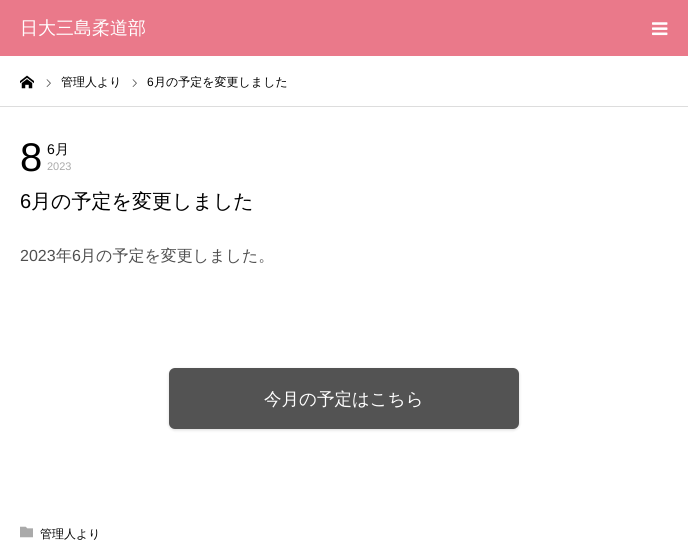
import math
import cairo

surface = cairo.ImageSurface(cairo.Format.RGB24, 688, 542)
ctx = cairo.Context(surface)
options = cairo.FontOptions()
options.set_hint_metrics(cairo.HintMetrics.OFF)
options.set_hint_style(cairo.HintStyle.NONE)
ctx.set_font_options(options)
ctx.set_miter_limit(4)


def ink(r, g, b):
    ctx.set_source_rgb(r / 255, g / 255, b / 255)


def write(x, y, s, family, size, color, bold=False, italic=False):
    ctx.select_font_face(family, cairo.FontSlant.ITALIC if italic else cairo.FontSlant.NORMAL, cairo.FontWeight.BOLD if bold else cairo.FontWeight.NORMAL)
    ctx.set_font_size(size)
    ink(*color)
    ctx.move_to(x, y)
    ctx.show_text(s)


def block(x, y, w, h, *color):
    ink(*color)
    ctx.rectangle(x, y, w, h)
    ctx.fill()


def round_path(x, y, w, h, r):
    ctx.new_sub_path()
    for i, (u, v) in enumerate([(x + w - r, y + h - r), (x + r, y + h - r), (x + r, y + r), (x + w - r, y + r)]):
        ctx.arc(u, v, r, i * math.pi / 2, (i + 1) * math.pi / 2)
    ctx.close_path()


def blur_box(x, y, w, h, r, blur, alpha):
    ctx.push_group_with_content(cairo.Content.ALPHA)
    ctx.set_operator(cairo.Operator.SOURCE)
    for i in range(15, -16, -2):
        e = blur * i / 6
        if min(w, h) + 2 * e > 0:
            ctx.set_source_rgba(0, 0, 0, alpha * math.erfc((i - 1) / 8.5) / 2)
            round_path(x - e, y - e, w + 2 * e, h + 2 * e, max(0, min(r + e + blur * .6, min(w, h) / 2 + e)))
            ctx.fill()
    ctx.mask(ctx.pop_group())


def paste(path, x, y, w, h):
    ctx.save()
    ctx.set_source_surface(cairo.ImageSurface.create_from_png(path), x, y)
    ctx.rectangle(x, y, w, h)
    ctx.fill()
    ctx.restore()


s1 = dict(family="WenQuanYi Zen Hei Medium", size=18, color=(255, 255, 255))
s2 = dict(family="WenQuanYi Zen Hei Medium", size=12, color=(0, 0, 0))
s3 = dict(family="Liberation Sans", size=12, color=(0, 0, 0))
s4 = dict(family="Liberation Sans", size=40, color=(0, 0, 0))
s5 = dict(family="Liberation Sans", size=14, color=(0, 0, 0))
s6 = dict(family="WenQuanYi Zen Hei Medium", size=14, color=(0, 0, 0))
s7 = dict(family="Liberation Sans", size=11, color=(170, 170, 170))
s8 = dict(family="Liberation Sans", size=20, color=(0, 0, 0))
s9 = dict(family="WenQuanYi Zen Hei Medium", size=20, color=(0, 0, 0))
s10 = dict(family="Liberation Sans", size=16, color=(79, 79, 79))
s11 = dict(family="WenQuanYi Zen Hei Medium", size=16, color=(79, 79, 79))
s12 = dict(family="WenQuanYi Zen Hei Medium", size=17.5, color=(255, 255, 255))

ink(255, 255, 255)
ctx.paint()
block(0, 0, 688, 56, 234, 121, 138)
write(20, 34, "日大三島柔道部", **s1)
paste("pic1.png", 652, 22, 16, 14)
block(0, 106, 688, 1, 221, 221, 221)
paste("pic2.png", 20, 75, 14, 14)
paste("pic3.png", 46, 79, 5, 8)
write(61, 86, "管理人より", **s2)
paste("pic3.png", 132, 79, 5, 8)
write(147, 86, "6", **s3)
write(154, 86, "月の予定を変更しました", **s2)
write(20, 171, "8", **s4)
write(47, 154, "6", **s5)
write(55, 154, "月", **s6)
write(47, 170, "2023", **s7)
write(20, 208, "6", **s8)
write(31, 208, "月の予定を変更しました", **s9)
write(20, 261, "2023", **s10)
write(56, 261, "年", **s11)
write(72, 261, "6", **s10)
write(80, 261, "月の予定を変更しました。", **s11)
ink(0, 0, 0)
blur_box(169, 369, 350, 61, 6, 1.5, 0.15)
ink(83, 83, 83)
round_path(169, 368, 350, 61, 6)
ctx.fill()
write(264, 405, "今月の予定はこちら", **s12)
paste("pic4.png", 20, 526, 13, 12)
write(40, 538, "管理人より", **s2)
surface.write_to_png("screenshot.png")
